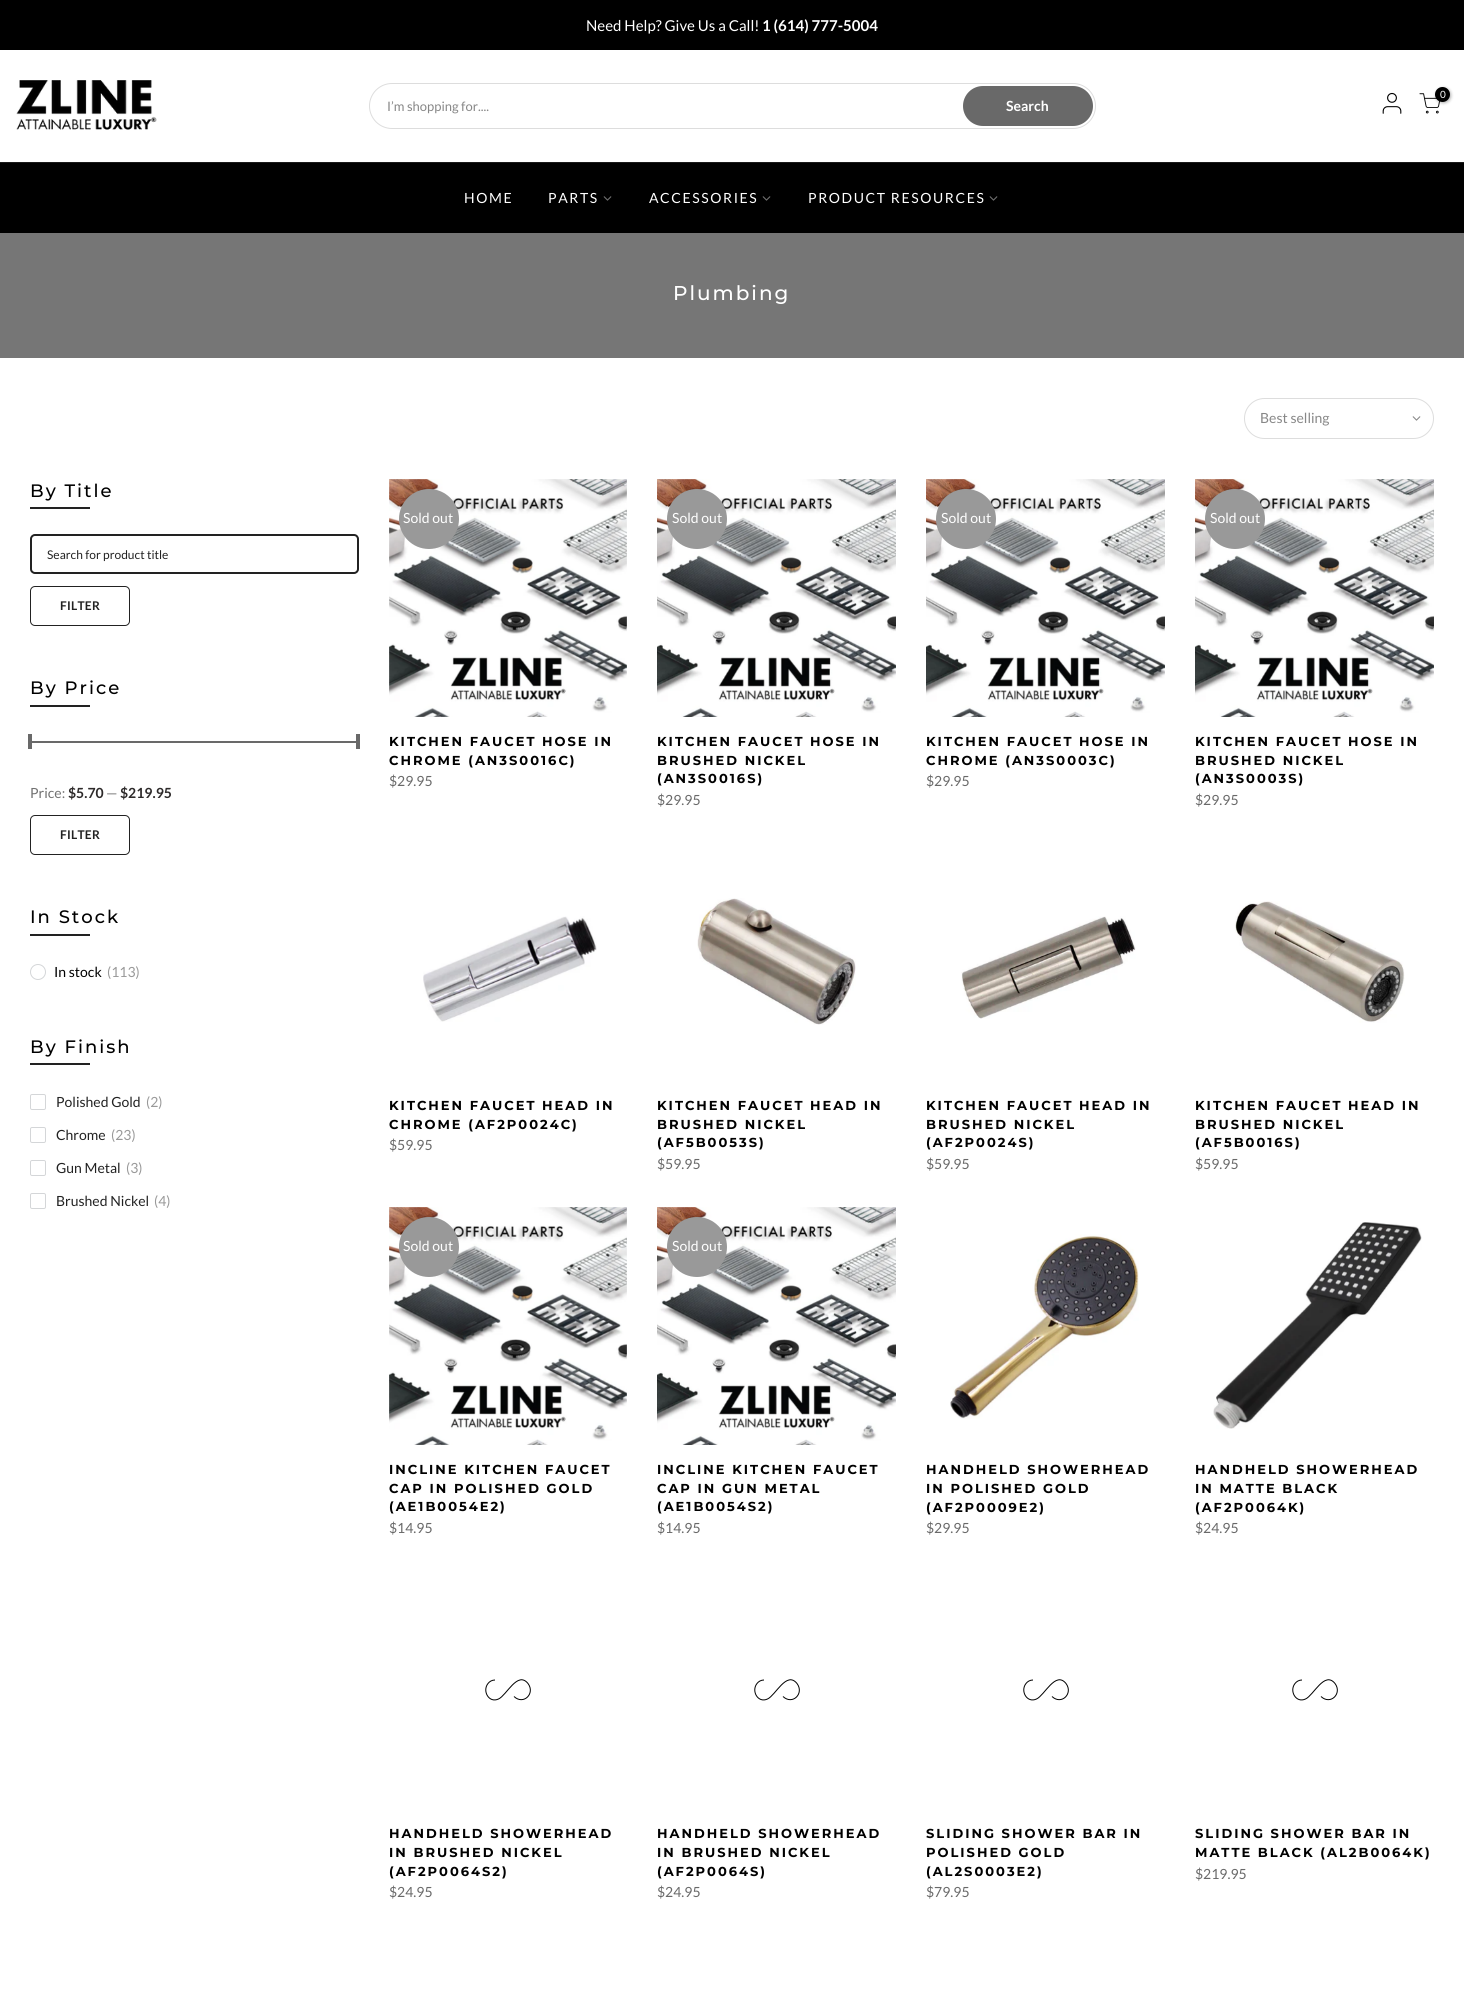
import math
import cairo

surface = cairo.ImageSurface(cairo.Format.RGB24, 1464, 1998)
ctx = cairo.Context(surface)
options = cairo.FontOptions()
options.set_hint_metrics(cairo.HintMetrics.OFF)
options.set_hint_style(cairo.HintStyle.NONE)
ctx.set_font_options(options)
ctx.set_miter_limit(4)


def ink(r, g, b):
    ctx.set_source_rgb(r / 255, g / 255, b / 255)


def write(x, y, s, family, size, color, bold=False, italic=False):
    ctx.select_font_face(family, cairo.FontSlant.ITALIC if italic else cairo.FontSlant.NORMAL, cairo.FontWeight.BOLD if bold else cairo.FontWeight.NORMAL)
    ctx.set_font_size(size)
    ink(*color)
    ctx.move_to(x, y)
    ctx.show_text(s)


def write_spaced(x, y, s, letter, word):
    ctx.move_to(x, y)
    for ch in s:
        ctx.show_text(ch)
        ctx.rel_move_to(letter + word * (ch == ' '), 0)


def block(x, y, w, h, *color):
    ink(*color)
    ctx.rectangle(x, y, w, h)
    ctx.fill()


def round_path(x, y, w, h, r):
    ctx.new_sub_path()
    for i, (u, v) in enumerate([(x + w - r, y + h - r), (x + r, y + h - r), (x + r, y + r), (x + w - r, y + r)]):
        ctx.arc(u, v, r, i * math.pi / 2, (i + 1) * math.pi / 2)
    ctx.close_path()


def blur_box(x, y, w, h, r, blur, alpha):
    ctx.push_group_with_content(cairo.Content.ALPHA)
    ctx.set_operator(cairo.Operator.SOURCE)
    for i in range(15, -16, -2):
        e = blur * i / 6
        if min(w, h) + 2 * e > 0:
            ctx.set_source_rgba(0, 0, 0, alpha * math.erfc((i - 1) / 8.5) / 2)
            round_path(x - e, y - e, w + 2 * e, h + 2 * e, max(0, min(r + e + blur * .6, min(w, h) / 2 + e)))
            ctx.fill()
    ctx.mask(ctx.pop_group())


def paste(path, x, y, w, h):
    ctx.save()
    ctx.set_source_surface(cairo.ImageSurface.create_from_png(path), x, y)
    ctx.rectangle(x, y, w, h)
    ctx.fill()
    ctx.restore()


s1 = dict(family="Lato", size=15, color=(255, 255, 255))
s2 = dict(family="Lato", size=15, color=(255, 255, 255), bold=True)
s3 = dict(family="Lato", size=10, color=(255, 255, 255))
s4 = dict(family="Lato", size=13, color=(135, 135, 135))
s5 = dict(family="Lato", size=14, color=(255, 255, 255), bold=True)
s6 = dict(family="Lato", size=14, color=(135, 135, 135))
s7 = dict(family="Lato", size=12, color=(34, 34, 34))
s8 = dict(family="Lato", size=14, color=(113, 113, 113))
s9 = dict(family="Lato", size=14, color=(45, 42, 42), bold=True)
s10 = dict(family="Lato", size=14, color=(0, 0, 0))
s11 = dict(family="Lato", size=14, color=(153, 153, 153))
s12 = dict(family="Lato", size=14, color=(34, 34, 34))
s13 = dict(family="Lato", size=14, color=(255, 255, 255))
s14 = dict(family="Lato", size=14, color=(105, 105, 105))

ink(255, 255, 255)
ctx.paint()
block(0, 0, 1464, 50, 0, 0, 0)
write(586, 31, "Need Help? Give Us a Call!", **s1)
write(762, 31, "1 (614) 777-5004", **s2)
paste("pic1.png", 16, 80, 141, 50)
paste("pic2.png", 1382, 92, 20, 22)
paste("pic3.png", 1419, 93, 21, 21)
ink(0, 0, 0)
blur_box(1436, 88, 15, 15, 7.5, 1.5, 0.3)
ink(0, 0, 0)
ctx.arc(1442.5, 94.5, 7.5, 0, 2 * math.pi)
ctx.fill()
write(1440, 98, "0", **s3)
round_path(369.5, 83.5, 726, 45, 22.5)
ink(221, 221, 221)
ctx.set_line_width(1)
ctx.stroke()
write(387, 111, "I’m shopping for....", **s4)
ink(105, 105, 105)
round_path(963, 86, 130, 40, 20)
ctx.fill()
write(1006, 111, "Search", **s5)
block(0, 163, 1464, 70, 0, 0, 0)
block(0, 162, 1464, 1, 26, 26, 26)
ctx.select_font_face("Lato")
ink(255, 255, 255)
write_spaced(464, 203, "HOME", 1.6, 0)
write_spaced(548, 203, "PARTS", 1.6, 0)
paste("pic4.png", 603, 196, 9, 5)
write_spaced(649, 203, "ACCESSORIES", 1.6, 0)
paste("pic4.png", 762, 196, 9, 5)
write_spaced(808, 203, "PRODUCT RESOURCES", 1.6, 0)
paste("pic4.png", 989, 196, 9, 5)
block(0, 233, 1464, 125, 118, 118, 118)
ctx.select_font_face("Montserrat Medium")
ctx.set_font_size(20)
ink(255, 255, 255)
write_spaced(673, 300, "Plumbing", 2, 0)
round_path(1244.5, 398.5, 189, 40, 20)
ink(221, 221, 221)
ctx.stroke()
write(1260, 423, "Best selling", **s6)
paste("pic5.png", 1412, 416, 9, 5)
ctx.select_font_face("Montserrat Medium")
ctx.set_font_size(18)
ink(0, 0, 0)
write_spaced(30, 497, "By Title", 2, 0)
block(30, 507, 60, 2, 34, 34, 34)
round_path(31, 535, 327, 38, 4)
ctx.set_line_width(2)
ctx.stroke()
write(47, 559, "Search for product title", **s7)
round_path(30.5, 586.5, 99, 39, 4.5)
ctx.set_line_width(1)
ctx.stroke()
ctx.select_font_face("Lato", cairo.FontSlant.NORMAL, cairo.FontWeight.BOLD)
write_spaced(60, 610, "FILTER", 0.25, 0)
ctx.select_font_face("Montserrat Medium")
ctx.set_font_size(18)
ink(0, 0, 0)
write_spaced(30, 694, "By Price", 2, 0)
block(30, 705, 60, 2, 34, 34, 34)
block(30, 741, 329, 2, 105, 105, 105)
block(28, 734, 4, 15, 105, 105, 105)
block(356, 734, 4, 15, 105, 105, 105)
write(30, 798, "Price:", **s8)
write(68, 798, "$5.70", **s9)
write(106, 798, "—", **s8)
write(120, 798, "$219.95", **s9)
round_path(30.5, 815.5, 99, 39, 4.5)
ink(34, 34, 34)
ctx.stroke()
ctx.set_font_size(12)
write_spaced(60, 839, "FILTER", 0.25, 0)
ctx.select_font_face("Montserrat Medium")
ctx.set_font_size(18)
ink(0, 0, 0)
write_spaced(30, 923, "In Stock", 2, 0)
block(30, 934, 60, 2, 34, 34, 34)
ctx.new_path()
ctx.arc(38, 972, 7.5, 0, 2 * math.pi)
ink(212, 214, 216)
ctx.stroke()
write(54, 977, "In stock", **s10)
write(107, 977, "(113)", **s11)
ctx.select_font_face("Montserrat Medium")
ctx.set_font_size(18)
ink(0, 0, 0)
write_spaced(30, 1053, "By Finish", 2, 0)
block(30, 1063, 60, 2, 34, 34, 34)
round_path(30.5, 1094.5, 15, 15, 1.5)
ink(212, 214, 216)
ctx.stroke()
write(56, 1107, "Polished Gold", **s12)
write(146, 1107, "(2)", **s11)
round_path(30.5, 1127.5, 15, 15, 1.5)
ink(212, 214, 216)
ctx.stroke()
write(56, 1140, "Chrome", **s12)
write(111, 1140, "(23)", **s11)
round_path(30.5, 1160.5, 15, 15, 1.5)
ink(212, 214, 216)
ctx.stroke()
write(56, 1173, "Gun Metal", **s12)
write(126, 1173, "(3)", **s11)
round_path(30.5, 1193.5, 15, 15, 1.5)
ink(212, 214, 216)
ctx.stroke()
write(56, 1206, "Brushed Nickel", **s12)
write(154, 1206, "(4)", **s11)
paste("pic6.png", 389, 479, 238, 238)
ctx.arc(429, 519, 30, 0, 2 * math.pi)
ctx.fill()
write(403, 523, "Sold out", **s13)
ctx.select_font_face("Montserrat", cairo.FontSlant.NORMAL, cairo.FontWeight.BOLD)
ctx.set_font_size(13)
ink(0, 0, 0)
write_spaced(389, 746, "KITCHEN FAUCET HOSE IN", 2, 0)
write_spaced(389, 765, "CHROME (AN3S0016C)", 2, 0)
write(389, 786, "$29.95", **s14)
paste("pic7.png", 657, 479, 239, 238)
ink(153, 153, 153)
ctx.arc(697, 519, 30, 0, 2 * math.pi)
ctx.fill()
write(672, 523, "Sold out", **s13)
ctx.select_font_face("Montserrat", cairo.FontSlant.NORMAL, cairo.FontWeight.BOLD)
ctx.set_font_size(13)
ink(0, 0, 0)
write_spaced(657, 746, "KITCHEN FAUCET HOSE IN", 2, 0)
write_spaced(657, 765, "BRUSHED NICKEL", 2, 0)
write_spaced(657, 783, "(AN3S0016S)", 2, 0)
write(657, 805, "$29.95", **s14)
paste("pic7.png", 926, 479, 239, 238)
ink(153, 153, 153)
ctx.arc(966, 519, 30, 0, 2 * math.pi)
ctx.fill()
write(941, 523, "Sold out", **s13)
ctx.select_font_face("Montserrat", cairo.FontSlant.NORMAL, cairo.FontWeight.BOLD)
ctx.set_font_size(13)
ink(0, 0, 0)
write_spaced(926, 746, "KITCHEN FAUCET HOSE IN", 2, 0)
write_spaced(926, 765, "CHROME (AN3S0003C)", 2, 0)
write(926, 786, "$29.95", **s14)
paste("pic7.png", 1195, 479, 239, 238)
ink(153, 153, 153)
ctx.arc(1235, 519, 30, 0, 2 * math.pi)
ctx.fill()
write(1210, 523, "Sold out", **s13)
ctx.select_font_face("Montserrat", cairo.FontSlant.NORMAL, cairo.FontWeight.BOLD)
ctx.set_font_size(13)
ink(0, 0, 0)
write_spaced(1195, 746, "KITCHEN FAUCET HOSE IN", 2, 0)
write_spaced(1195, 765, "BRUSHED NICKEL", 2, 0)
write_spaced(1195, 783, "(AN3S0003S)", 2, 0)
write(1195, 805, "$29.95", **s14)
paste("pic8.png", 423, 916, 174, 106)
ctx.select_font_face("Montserrat", cairo.FontSlant.NORMAL, cairo.FontWeight.BOLD)
ctx.set_font_size(13)
ink(0, 0, 0)
write_spaced(389, 1110, "KITCHEN FAUCET HEAD IN", 2, 0)
write_spaced(389, 1129, "CHROME (AF2P0024C)", 2, 0)
write(389, 1150, "$59.95", **s14)
paste("pic9.png", 697, 898, 159, 127)
ctx.select_font_face("Montserrat", cairo.FontSlant.NORMAL, cairo.FontWeight.BOLD)
ctx.set_font_size(13)
ink(0, 0, 0)
write_spaced(657, 1110, "KITCHEN FAUCET HEAD IN", 2, 0)
write_spaced(657, 1129, "BRUSHED NICKEL", 2, 0)
write_spaced(657, 1147, "(AF5B0053S)", 2, 0)
write(657, 1169, "$59.95", **s14)
paste("pic10.png", 961, 916, 175, 103)
ctx.select_font_face("Montserrat", cairo.FontSlant.NORMAL, cairo.FontWeight.BOLD)
ctx.set_font_size(13)
ink(0, 0, 0)
write_spaced(926, 1110, "KITCHEN FAUCET HEAD IN", 2, 0)
write_spaced(926, 1129, "BRUSHED NICKEL", 2, 0)
write_spaced(926, 1147, "(AF2P0024S)", 2, 0)
write(926, 1169, "$59.95", **s14)
paste("pic11.png", 1235, 901, 170, 122)
ctx.select_font_face("Montserrat", cairo.FontSlant.NORMAL, cairo.FontWeight.BOLD)
ctx.set_font_size(13)
ink(0, 0, 0)
write_spaced(1195, 1110, "KITCHEN FAUCET HEAD IN", 2, 0)
write_spaced(1195, 1129, "BRUSHED NICKEL", 2, 0)
write_spaced(1195, 1147, "(AF5B0016S)", 2, 0)
write(1195, 1169, "$59.95", **s14)
paste("pic12.png", 389, 1207, 238, 238)
ink(153, 153, 153)
ctx.arc(429, 1247, 30, 0, 2 * math.pi)
ctx.fill()
write(403, 1251, "Sold out", **s13)
ctx.select_font_face("Montserrat", cairo.FontSlant.NORMAL, cairo.FontWeight.BOLD)
ctx.set_font_size(13)
ink(0, 0, 0)
write_spaced(389, 1474, "INCLINE KITCHEN FAUCET", 2, 0)
write_spaced(389, 1493, "CAP IN POLISHED GOLD", 2, 0)
write_spaced(389, 1511, "(AE1B0054E2)", 2, 0)
write(389, 1533, "$14.95", **s14)
paste("pic7.png", 657, 1207, 239, 238)
ink(153, 153, 153)
ctx.arc(697, 1247, 30, 0, 2 * math.pi)
ctx.fill()
write(672, 1251, "Sold out", **s13)
ctx.select_font_face("Montserrat", cairo.FontSlant.NORMAL, cairo.FontWeight.BOLD)
ctx.set_font_size(13)
ink(0, 0, 0)
write_spaced(657, 1474, "INCLINE KITCHEN FAUCET", 2, 0)
write_spaced(657, 1493, "CAP IN GUN METAL", 2, 0)
write_spaced(657, 1511, "(AE1B0054S2)", 2, 0)
write(657, 1533, "$14.95", **s14)
paste("pic13.png", 950, 1234, 189, 185)
ctx.select_font_face("Montserrat", cairo.FontSlant.NORMAL, cairo.FontWeight.BOLD)
ctx.set_font_size(13)
ink(0, 0, 0)
write_spaced(926, 1474, "HANDHELD SHOWERHEAD", 2, 0)
write_spaced(926, 1493, "IN POLISHED GOLD", 2, 0)
write_spaced(926, 1512, "(AF2P0009E2)", 2, 0)
write(926, 1533, "$29.95", **s14)
paste("pic14.png", 1213, 1222, 209, 207)
ctx.select_font_face("Montserrat", cairo.FontSlant.NORMAL, cairo.FontWeight.BOLD)
ctx.set_font_size(13)
ink(0, 0, 0)
write_spaced(1195, 1474, "HANDHELD SHOWERHEAD", 2, 0)
write_spaced(1195, 1493, "IN MATTE BLACK", 2, 0)
write_spaced(1195, 1512, "(AF2P0064K)", 2, 0)
write(1195, 1533, "$24.95", **s14)
ctx.new_path()
ctx.move_to(495, 1680)
ctx.curve_to(492, 1680, 489.5, 1681.5, 488, 1683.5)
ctx.curve_to(482, 1691, 489, 1703.5, 498.5, 1699)
ctx.curve_to(506.5, 1695.5, 517.5, 1670.5, 528, 1683.5)
ctx.curve_to(535.5, 1693.5, 523.5, 1705.5, 514, 1696.5)
ink(0, 0, 0)
ctx.stroke()
ctx.select_font_face("Montserrat", cairo.FontSlant.NORMAL, cairo.FontWeight.BOLD)
ctx.set_font_size(13)
write_spaced(389, 1838, "HANDHELD SHOWERHEAD", 2, 0)
write_spaced(389, 1857, "IN BRUSHED NICKEL", 2, 0)
write_spaced(389, 1876, "(AF2P0064S2)", 2, 0)
write(389, 1897, "$24.95", **s14)
ctx.new_path()
ctx.move_to(764, 1680)
ctx.curve_to(761, 1680, 758.5, 1681.5, 757, 1683.5)
ctx.curve_to(751, 1691, 758, 1703.5, 767.5, 1699)
ctx.curve_to(775.5, 1695.5, 786.5, 1670.5, 797, 1683.5)
ctx.curve_to(804.5, 1693.5, 792.5, 1705.5, 783, 1696.5)
ink(0, 0, 0)
ctx.stroke()
ctx.select_font_face("Montserrat", cairo.FontSlant.NORMAL, cairo.FontWeight.BOLD)
ctx.set_font_size(13)
write_spaced(657, 1838, "HANDHELD SHOWERHEAD", 2, 0)
write_spaced(657, 1857, "IN BRUSHED NICKEL", 2, 0)
write_spaced(657, 1876, "(AF2P0064S)", 2, 0)
write(657, 1897, "$24.95", **s14)
ctx.new_path()
ctx.move_to(1033, 1680)
ctx.curve_to(1030, 1680, 1027.5, 1681.5, 1026, 1683.5)
ctx.curve_to(1020, 1691, 1027, 1703.5, 1036.5, 1699)
ctx.curve_to(1044.5, 1695.5, 1055.5, 1670.5, 1066, 1683.5)
ctx.curve_to(1073.5, 1693.5, 1061.5, 1705.5, 1052, 1696.5)
ink(0, 0, 0)
ctx.stroke()
ctx.select_font_face("Montserrat", cairo.FontSlant.NORMAL, cairo.FontWeight.BOLD)
ctx.set_font_size(13)
write_spaced(926, 1838, "SLIDING SHOWER BAR IN", 2, 0)
write_spaced(926, 1857, "POLISHED GOLD", 2, 0)
write_spaced(926, 1876, "(AL2S0003E2)", 2, 0)
write(926, 1897, "$79.95", **s14)
ctx.new_path()
ctx.move_to(1302, 1680)
ctx.curve_to(1299, 1680, 1296.5, 1681.5, 1295, 1683.5)
ctx.curve_to(1289, 1691, 1296, 1703.5, 1305.5, 1699)
ctx.curve_to(1313.5, 1695.5, 1324.5, 1670.5, 1335, 1683.5)
ctx.curve_to(1342.5, 1693.5, 1330.5, 1705.5, 1321, 1696.5)
ink(0, 0, 0)
ctx.stroke()
ctx.select_font_face("Montserrat", cairo.FontSlant.NORMAL, cairo.FontWeight.BOLD)
ctx.set_font_size(13)
write_spaced(1195, 1838, "SLIDING SHOWER BAR IN", 2, 0)
write_spaced(1195, 1857, "MATTE BLACK (AL2B0064K)", 2, 0)
write(1195, 1879, "$219.95", **s14)
surface.write_to_png("screenshot.png")
